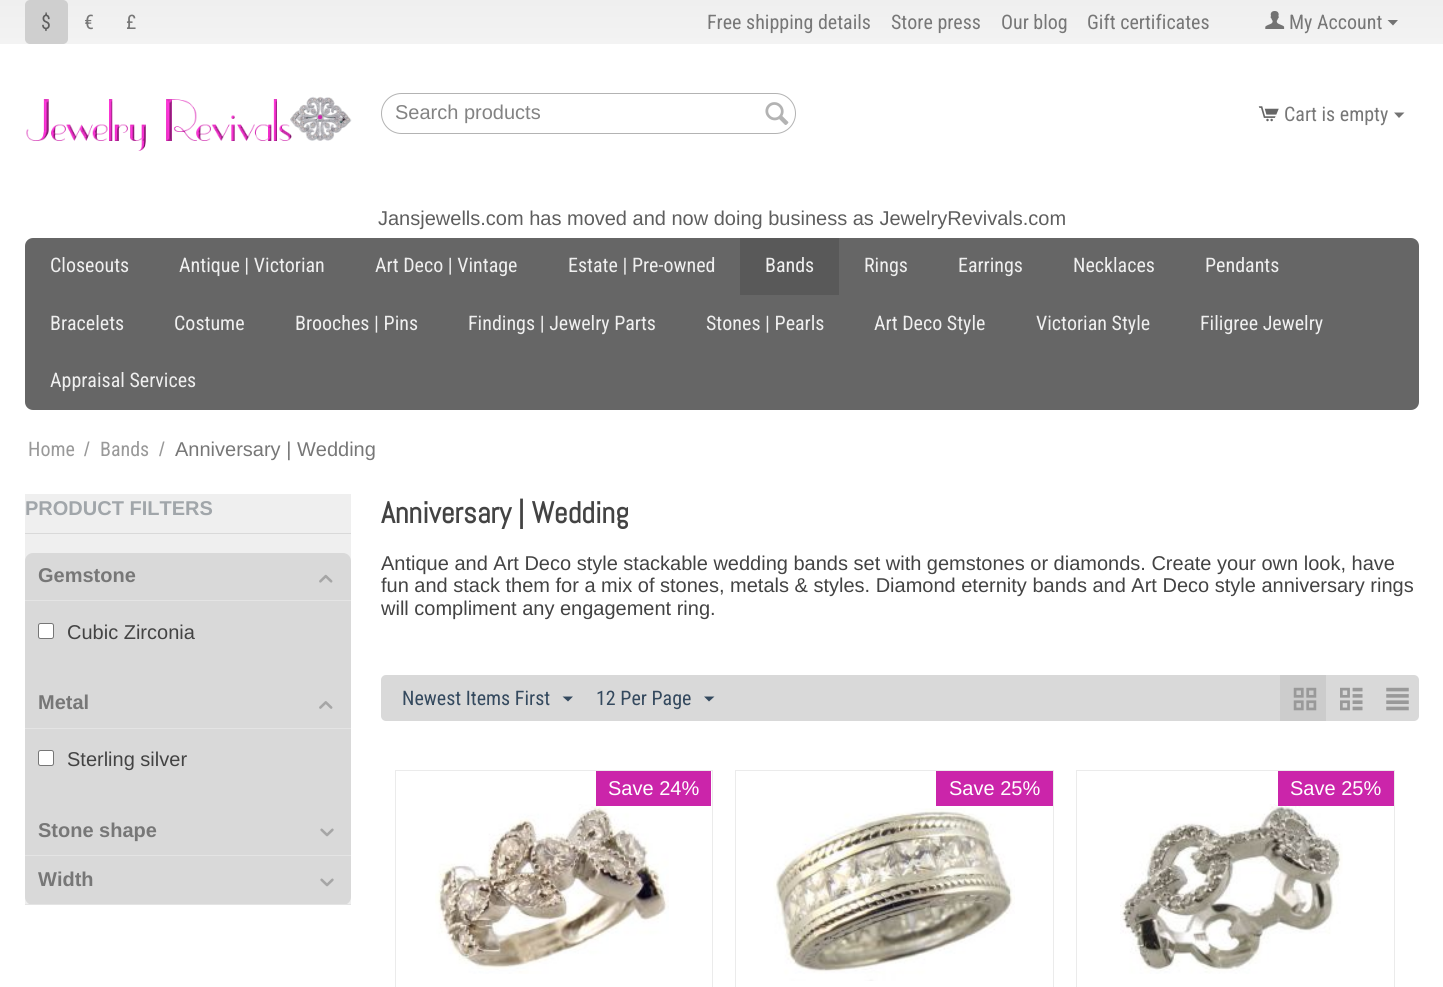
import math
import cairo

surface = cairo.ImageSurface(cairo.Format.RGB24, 1443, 987)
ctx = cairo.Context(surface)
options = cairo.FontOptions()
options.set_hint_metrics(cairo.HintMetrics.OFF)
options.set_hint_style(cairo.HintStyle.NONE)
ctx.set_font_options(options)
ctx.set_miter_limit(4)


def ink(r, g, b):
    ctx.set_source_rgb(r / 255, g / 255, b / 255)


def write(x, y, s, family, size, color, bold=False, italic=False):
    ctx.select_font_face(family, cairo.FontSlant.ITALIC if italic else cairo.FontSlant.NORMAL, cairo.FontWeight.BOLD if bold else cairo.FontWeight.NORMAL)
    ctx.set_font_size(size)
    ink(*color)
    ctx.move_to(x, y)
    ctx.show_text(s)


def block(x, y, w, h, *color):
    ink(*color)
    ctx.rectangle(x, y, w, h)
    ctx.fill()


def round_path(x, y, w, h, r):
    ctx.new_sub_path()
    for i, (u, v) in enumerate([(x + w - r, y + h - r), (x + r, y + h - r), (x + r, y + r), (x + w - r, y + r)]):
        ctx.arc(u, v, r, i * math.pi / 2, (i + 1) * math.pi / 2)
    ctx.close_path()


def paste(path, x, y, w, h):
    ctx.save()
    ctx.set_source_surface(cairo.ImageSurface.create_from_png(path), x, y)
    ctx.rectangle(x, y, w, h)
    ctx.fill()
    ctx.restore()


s1 = dict(family="Roboto Condensed", size=20, color=(94, 94, 94))
s2 = dict(family="Roboto Condensed", size=20, color=(119, 119, 119))
s3 = dict(family="Liberation Sans", size=20, color=(131, 131, 131))
s4 = dict(family="Liberation Sans", size=20, color=(94, 94, 94))
s5 = dict(family="Roboto Condensed", size=20, color=(239, 239, 239))
s6 = dict(family="Roboto Condensed", size=20, color=(153, 153, 153))
s7 = dict(family="Liberation Sans", size=20, color=(153, 153, 153))
s8 = dict(family="Liberation Sans", size=20, color=(119, 119, 119))
s9 = dict(family="Liberation Sans", size=20, color=(161, 166, 170), bold=True)
s10 = dict(family="Liberation Sans", size=20, color=(119, 119, 119), bold=True)
s11 = dict(family="Liberation Sans", size=20, color=(67, 67, 67))
s12 = dict(family="Abel", size=30, color=(67, 67, 67), bold=True)
s13 = dict(family="Roboto Condensed", size=20, color=(52, 73, 94))
s14 = dict(family="Liberation Sans", size=20, color=(255, 255, 255))

ink(255, 255, 255)
ctx.paint()
gradient = cairo.LinearGradient(722, 0, 722, 44)
gradient.add_color_stop_rgba(0, 0.937, 0.937, 0.937, 1)
gradient.add_color_stop_rgba(1, 0.953, 0.953, 0.953, 1)
ctx.set_source(gradient)
ctx.rectangle(0, 0, 1443, 44)
ctx.fill()
ink(207, 207, 207)
round_path(25, 0, 43, 44, 5)
ctx.fill()
write(41, 29, "$", **s1)
write(84, 29, "€", **s2)
write(126, 29, "£", **s2)
write(707, 29, "Free shipping details", **s2)
write(891, 29, "Store press", **s2)
write(1001, 29, "Our blog", **s2)
write(1087, 29, "Gift certificates", **s2)
paste("pic1.png", 1265, 11, 20, 18)
write(1289, 29, "My Account", **s2)
ink(115, 115, 115)
ctx.new_path()
ctx.move_to(1393, 25.5)
ctx.line_to(1387.5, 20)
ctx.line_to(1398, 20)
ctx.close_path()
ctx.fill()
paste("pic2.png", 26, 96, 326, 55)
round_path(381.5, 93.5, 414, 40, 20)
ink(179, 179, 179)
ctx.set_line_width(1)
ctx.stroke()
write(395, 119, "Search products", **s3)
paste("pic3.png", 765, 102, 24, 23)
paste("pic4.png", 1258, 106, 21, 16)
write(1284, 121, "Cart is empty", **s2)
ink(115, 115, 115)
ctx.new_path()
ctx.move_to(1399, 118)
ctx.line_to(1394, 112.5)
ctx.line_to(1404.5, 112.5)
ctx.close_path()
ctx.fill()
write(378, 225, "Jansjewells.com has moved and now doing business as JewelryRevivals.com", **s4)
ink(102, 102, 102)
round_path(25, 238, 1394, 172, 8)
ctx.fill()
write(50, 272, "Closeouts", **s5)
write(179, 272, "Antique | Victorian", **s5)
write(375, 272, "Art Deco | Vintage", **s5)
write(568, 272, "Estate | Pre-owned", **s5)
block(740, 238, 99, 57, 89, 89, 89)
write(765, 272, "Bands", **s5)
write(864, 272, "Rings", **s5)
write(958, 272, "Earrings", **s5)
write(1073, 272, "Necklaces", **s5)
write(1205, 272, "Pendants", **s5)
write(50, 330, "Bracelets", **s5)
write(174, 330, "Costume", **s5)
write(295, 330, "Brooches | Pins", **s5)
write(468, 330, "Findings | Jewelry Parts", **s5)
write(706, 330, "Stones | Pearls", **s5)
write(874, 330, "Art Deco Style", **s5)
write(1036, 330, "Victorian Style", **s5)
write(1200, 330, "Filigree Jewelry", **s5)
write(50, 387, "Appraisal Services", **s5)
write(28, 456, "Home", **s6)
write(84, 456, "/", **s7)
write(100, 456, "Bands", **s6)
write(159, 456, "/", **s7)
write(175, 456, "Anniversary | Wedding", **s8)
block(25, 494, 326, 410, 239, 239, 239)
block(25, 533, 326, 1, 217, 217, 217)
write(25, 515, "PRODUCT FILTERS", **s9)
ink(217, 217, 217)
round_path(25, 553, 326, 352, 8)
ctx.fill()
block(25, 600, 326, 1, 228, 228, 228)
write(38, 582, "Gemstone", **s10)
paste("pic5.png", 319, 574, 14, 9)
ink(255, 255, 255)
round_path(38.5, 623.5, 15, 15, 2)
ctx.fill_preserve()
ink(118, 118, 118)
ctx.stroke()
write(67, 639, "Cubic Zirconia", **s11)
block(25, 728, 326, 1, 228, 228, 228)
write(38, 709, "Metal", **s10)
paste("pic6.png", 319, 701, 14, 8)
ink(255, 255, 255)
round_path(38.5, 750.5, 15, 15, 2)
ctx.fill_preserve()
ink(118, 118, 118)
ctx.stroke()
write(67, 766, "Sterling silver", **s11)
block(25, 855, 326, 1, 228, 228, 228)
write(38, 837, "Stone shape", **s10)
paste("pic7.png", 320, 828, 14, 9)
block(25, 904, 326, 1, 228, 228, 228)
write(38, 886, "Width", **s10)
paste("pic7.png", 320, 878, 14, 9)
write(381, 523, "Anniversary | Wedding", **s12)
write(381, 570, "Antique and Art Deco style stackable wedding bands set with gemstones or diamonds. Create your own look, have", **s11)
write(381, 592, "fun and stack them for a mix of stones, metals & styles. Diamond eternity bands and Art Deco style anniversary rings", **s11)
write(381, 615, "will compliment any engagement ring.", **s11)
ink(217, 217, 217)
round_path(381, 675, 1038, 46, 5)
ctx.fill()
write(402, 705, "Newest Items First", **s13)
ctx.new_path()
ctx.move_to(568, 701.5)
ctx.line_to(562.5, 696.5)
ctx.line_to(573, 696.5)
ctx.close_path()
ctx.fill()
write(596, 705, "12 Per Page", **s13)
ctx.new_path()
ctx.move_to(709, 701.5)
ctx.line_to(704, 696.5)
ctx.line_to(714.5, 696.5)
ctx.close_path()
ctx.fill()
block(1280, 675, 46, 46, 204, 204, 204)
paste("pic8.png", 1293, 687, 24, 24)
paste("pic9.png", 1340, 687, 23, 24)
paste("pic10.png", 1386, 687, 23, 24)
ctx.rectangle(395.5, 770.5, 317, 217)
ink(235, 235, 235)
ctx.stroke()
paste("pic11.png", 435, 804, 234, 170)
block(596, 771, 115, 35, 203, 37, 170)
write(608, 795, "Save 24%", **s14)
ctx.rectangle(735.5, 770.5, 318, 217)
ink(235, 235, 235)
ctx.stroke()
block(936, 771, 117, 35, 203, 37, 170)
write(949, 795, "Save 25%", **s14)
paste("pic12.png", 773, 808, 242, 173)
ctx.rectangle(1076.5, 770.5, 318, 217)
ink(235, 235, 235)
ctx.stroke()
paste("pic13.png", 1120, 804, 223, 170)
block(1278, 771, 116, 35, 203, 37, 170)
write(1290, 795, "Save 25%", **s14)
surface.write_to_png("screenshot.png")
